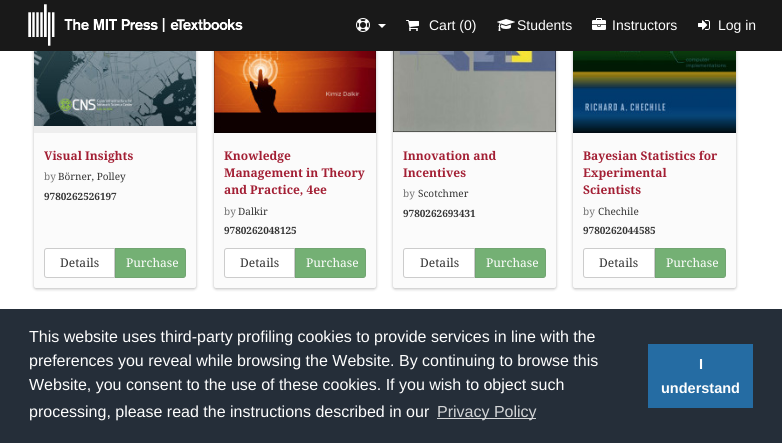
import math
import cairo

surface = cairo.ImageSurface(cairo.Format.RGB24, 782, 443)
ctx = cairo.Context(surface)
options = cairo.FontOptions()
options.set_hint_metrics(cairo.HintMetrics.OFF)
options.set_hint_style(cairo.HintStyle.NONE)
ctx.set_font_options(options)
ctx.set_miter_limit(4)


def ink(r, g, b):
    ctx.set_source_rgb(r / 255, g / 255, b / 255)


def write(x, y, s, family, size, color, bold=False, italic=False):
    ctx.select_font_face(family, cairo.FontSlant.ITALIC if italic else cairo.FontSlant.NORMAL, cairo.FontWeight.BOLD if bold else cairo.FontWeight.NORMAL)
    ctx.set_font_size(size)
    ink(*color)
    ctx.move_to(x, y)
    ctx.show_text(s)


def block(x, y, w, h, *color):
    ink(*color)
    ctx.rectangle(x, y, w, h)
    ctx.fill()


def round_path(x, y, w, h, r):
    ctx.new_sub_path()
    for i, (u, v) in enumerate([(x + w - r, y + h - r), (x + r, y + h - r), (x + r, y + r), (x + w - r, y + r)]):
        ctx.arc(u, v, r, i * math.pi / 2, (i + 1) * math.pi / 2)
    ctx.close_path()


def blur_box(x, y, w, h, r, blur, alpha):
    ctx.push_group_with_content(cairo.Content.ALPHA)
    ctx.set_operator(cairo.Operator.SOURCE)
    for i in range(15, -16, -2):
        e = blur * i / 6
        if min(w, h) + 2 * e > 0:
            ctx.set_source_rgba(0, 0, 0, alpha * math.erfc((i - 1) / 8.5) / 2)
            round_path(x - e, y - e, w + 2 * e, h + 2 * e, max(0, min(r + e + blur * .6, min(w, h) / 2 + e)))
            ctx.fill()
    ctx.mask(ctx.pop_group())


def paste(path, x, y, w, h):
    ctx.save()
    ctx.set_source_surface(cairo.ImageSurface.create_from_png(path), x, y)
    ctx.rectangle(x, y, w, h)
    ctx.fill()
    ctx.restore()


s1 = dict(family="Liberation Sans", size=14, color=(254, 254, 254))
s2 = dict(family="Droid Serif", size=12, color=(163, 31, 52), bold=True)
s3 = dict(family="Droid Serif", size=10, color=(116, 116, 116))
s4 = dict(family="Droid Serif", size=10, color=(51, 51, 51))
s5 = dict(family="Droid Serif", size=10, color=(51, 51, 51), bold=True)
s6 = dict(family="Droid Serif", size=12, color=(51, 51, 51))
s7 = dict(family="Droid Serif", size=12, color=(254, 254, 254))
s8 = dict(family="Liberation Sans", size=16, color=(254, 254, 254))
s9 = dict(family="Liberation Sans", size=16, color=(211, 213, 215))
s10 = dict(family="Liberation Sans", size=14.5, color=(254, 254, 254), bold=True)

ink(255, 255, 255)
ctx.paint()
ink(0, 0, 0)
blur_box(34, -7, 162, 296, 2, 1.5, 0.12)
blur_box(34, -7, 162, 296, 2, 1.5, 0.16)
ink(251, 251, 251)
round_path(34, -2, 162, 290, 2)
ctx.fill()
ink(0, 0, 0)
blur_box(214, -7, 162, 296, 2, 1.5, 0.12)
blur_box(214, -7, 162, 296, 2, 1.5, 0.16)
ink(251, 251, 251)
round_path(214, -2, 162, 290, 2)
ctx.fill()
ink(0, 0, 0)
blur_box(393, -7, 163, 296, 2, 1.5, 0.12)
blur_box(393, -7, 163, 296, 2, 1.5, 0.16)
ink(251, 251, 251)
round_path(393, -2, 163, 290, 2)
ctx.fill()
ink(0, 0, 0)
blur_box(573, -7, 163, 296, 2, 1.5, 0.12)
blur_box(573, -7, 163, 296, 2, 1.5, 0.16)
ink(251, 251, 251)
round_path(573, -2, 163, 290, 2)
ctx.fill()
block(0, 0, 782, 51, 25, 25, 25)
paste("pic1.png", 28, 4, 215, 42)
paste("pic2.png", 356, 18, 14, 14)
ink(255, 255, 255)
ctx.new_path()
ctx.move_to(378, 24)
ctx.line_to(386, 24)
ctx.line_to(382, 28)
ctx.close_path()
ctx.fill()
paste("pic3.png", 406, 20, 13, 11)
write(429, 30, "Cart (0)", **s1)
paste("pic4.png", 497, 19, 18, 12)
write(517, 30, "Students", **s1)
paste("pic5.png", 592, 18, 14, 12)
write(612, 30, "Instructors", **s1)
paste("pic6.png", 698, 20, 12, 10)
write(718, 30, "Log in", **s1)
block(34, 126, 162, 7, 238, 238, 238)
paste("pic7.png", 34, 51, 162, 75)
write(44, 160, "Visual Insights", **s2)
write(44, 180, "by", **s3)
write(58, 180, "Börner, Polley", **s4)
write(44, 200, "9780262526197", **s5)
ink(255, 255, 255)
ctx.new_path()
ctx.move_to(47, 248.5)
ctx.line_to(114.5, 248.5)
ctx.line_to(114.5, 277.5)
ctx.line_to(47, 277.5)
ctx.curve_to(45.5, 277.5, 44.5, 276.5, 44.5, 275)
ctx.line_to(44.5, 251)
ctx.curve_to(44.5, 249.5, 45.5, 248.5, 47, 248.5)
ctx.close_path()
ctx.fill_preserve()
ink(204, 204, 204)
ctx.set_line_width(1)
ctx.stroke()
write(60, 267, "Details", **s6)
ink(116, 176, 116)
ctx.new_path()
ctx.move_to(115.5, 248.5)
ctx.line_to(183, 248.5)
ctx.curve_to(184.5, 248.5, 185.5, 249.5, 185.5, 251)
ctx.line_to(185.5, 275)
ctx.curve_to(185.5, 276.5, 184.5, 277.5, 183, 277.5)
ctx.line_to(115.5, 277.5)
ctx.close_path()
ctx.fill_preserve()
ink(113, 164, 113)
ctx.stroke()
write(126, 267, "Purchase", **s7)
paste("pic8.png", 214, 51, 162, 82)
write(224, 160, "Knowledge", **s2)
write(224, 177, "Management in Theory", **s2)
write(224, 194, "and Practice, 4ee", **s2)
write(224, 215, "by", **s3)
write(238, 215, "Dalkir", **s4)
write(224, 234, "9780262048125", **s5)
ink(255, 255, 255)
ctx.new_path()
ctx.move_to(227, 248.5)
ctx.line_to(294.5, 248.5)
ctx.line_to(294.5, 277.5)
ctx.line_to(227, 277.5)
ctx.curve_to(225.5, 277.5, 224.5, 276.5, 224.5, 275)
ctx.line_to(224.5, 251)
ctx.curve_to(224.5, 249.5, 225.5, 248.5, 227, 248.5)
ctx.close_path()
ctx.fill_preserve()
ink(204, 204, 204)
ctx.stroke()
write(240, 267, "Details", **s6)
ink(116, 176, 116)
ctx.new_path()
ctx.move_to(295.5, 248.5)
ctx.line_to(363, 248.5)
ctx.curve_to(364.5, 248.5, 365.5, 249.5, 365.5, 251)
ctx.line_to(365.5, 275)
ctx.curve_to(365.5, 276.5, 364.5, 277.5, 363, 277.5)
ctx.line_to(295.5, 277.5)
ctx.close_path()
ctx.fill_preserve()
ink(113, 164, 113)
ctx.stroke()
write(306, 267, "Purchase", **s7)
block(393, 132, 163, 1, 238, 238, 238)
paste("pic9.png", 393, 51, 163, 81)
write(403, 160, "Innovation and", **s2)
write(403, 177, "Incentives", **s2)
write(403, 197, "by", **s3)
write(418, 197, "Scotchmer", **s4)
write(403, 217, "9780262693431", **s5)
ink(255, 255, 255)
ctx.new_path()
ctx.move_to(406, 248.5)
ctx.line_to(474.5, 248.5)
ctx.line_to(474.5, 277.5)
ctx.line_to(406, 277.5)
ctx.curve_to(404.5, 277.5, 403.5, 276.5, 403.5, 275)
ctx.line_to(403.5, 251)
ctx.curve_to(403.5, 249.5, 404.5, 248.5, 406, 248.5)
ctx.close_path()
ctx.fill_preserve()
ink(204, 204, 204)
ctx.stroke()
write(420, 267, "Details", **s6)
ink(116, 176, 116)
ctx.new_path()
ctx.move_to(475.5, 248.5)
ctx.line_to(543, 248.5)
ctx.curve_to(544.5, 248.5, 545.5, 249.5, 545.5, 251)
ctx.line_to(545.5, 275)
ctx.curve_to(545.5, 276.5, 544.5, 277.5, 543, 277.5)
ctx.line_to(475.5, 277.5)
ctx.close_path()
ctx.fill_preserve()
ink(113, 164, 113)
ctx.stroke()
write(486, 267, "Purchase", **s7)
paste("pic10.png", 573, 51, 163, 82)
write(583, 160, "Bayesian Statistics for", **s2)
write(583, 177, "Experimental", **s2)
write(583, 194, "Scientists", **s2)
write(583, 215, "by", **s3)
write(598, 215, "Chechile", **s4)
write(583, 234, "9780262044585", **s5)
ink(255, 255, 255)
ctx.new_path()
ctx.move_to(586, 248.5)
ctx.line_to(654.5, 248.5)
ctx.line_to(654.5, 277.5)
ctx.line_to(586, 277.5)
ctx.curve_to(584.5, 277.5, 583.5, 276.5, 583.5, 275)
ctx.line_to(583.5, 251)
ctx.curve_to(583.5, 249.5, 584.5, 248.5, 586, 248.5)
ctx.close_path()
ctx.fill_preserve()
ink(204, 204, 204)
ctx.stroke()
write(599, 267, "Details", **s6)
ink(116, 176, 116)
ctx.new_path()
ctx.move_to(655.5, 248.5)
ctx.line_to(723, 248.5)
ctx.curve_to(724.5, 248.5, 725.5, 249.5, 725.5, 251)
ctx.line_to(725.5, 275)
ctx.curve_to(725.5, 276.5, 724.5, 277.5, 723, 277.5)
ctx.line_to(655.5, 277.5)
ctx.close_path()
ctx.fill_preserve()
ink(113, 164, 113)
ctx.stroke()
write(666, 267, "Purchase", **s7)
block(0, 309, 782, 134, 37, 46, 57)
write(29, 342, "This website uses third-party profiling cookies to provide services in line with the", **s8)
write(29, 366, "preferences you reveal while browsing the Website. By continuing to browse this", **s8)
write(29, 390, "Website, you consent to the use of these cookies. If you wish to object such", **s8)
write(29, 417, "processing, please read the instructions described in our", **s8)
block(437, 418, 99, 1, 211, 213, 215)
write(437, 417, "Privacy Policy", **s9)
block(648, 344, 105, 64, 37, 108, 163)
write(699, 369, "I", **s10)
write(661, 393, "understand", **s10)
surface.write_to_png("screenshot.png")
